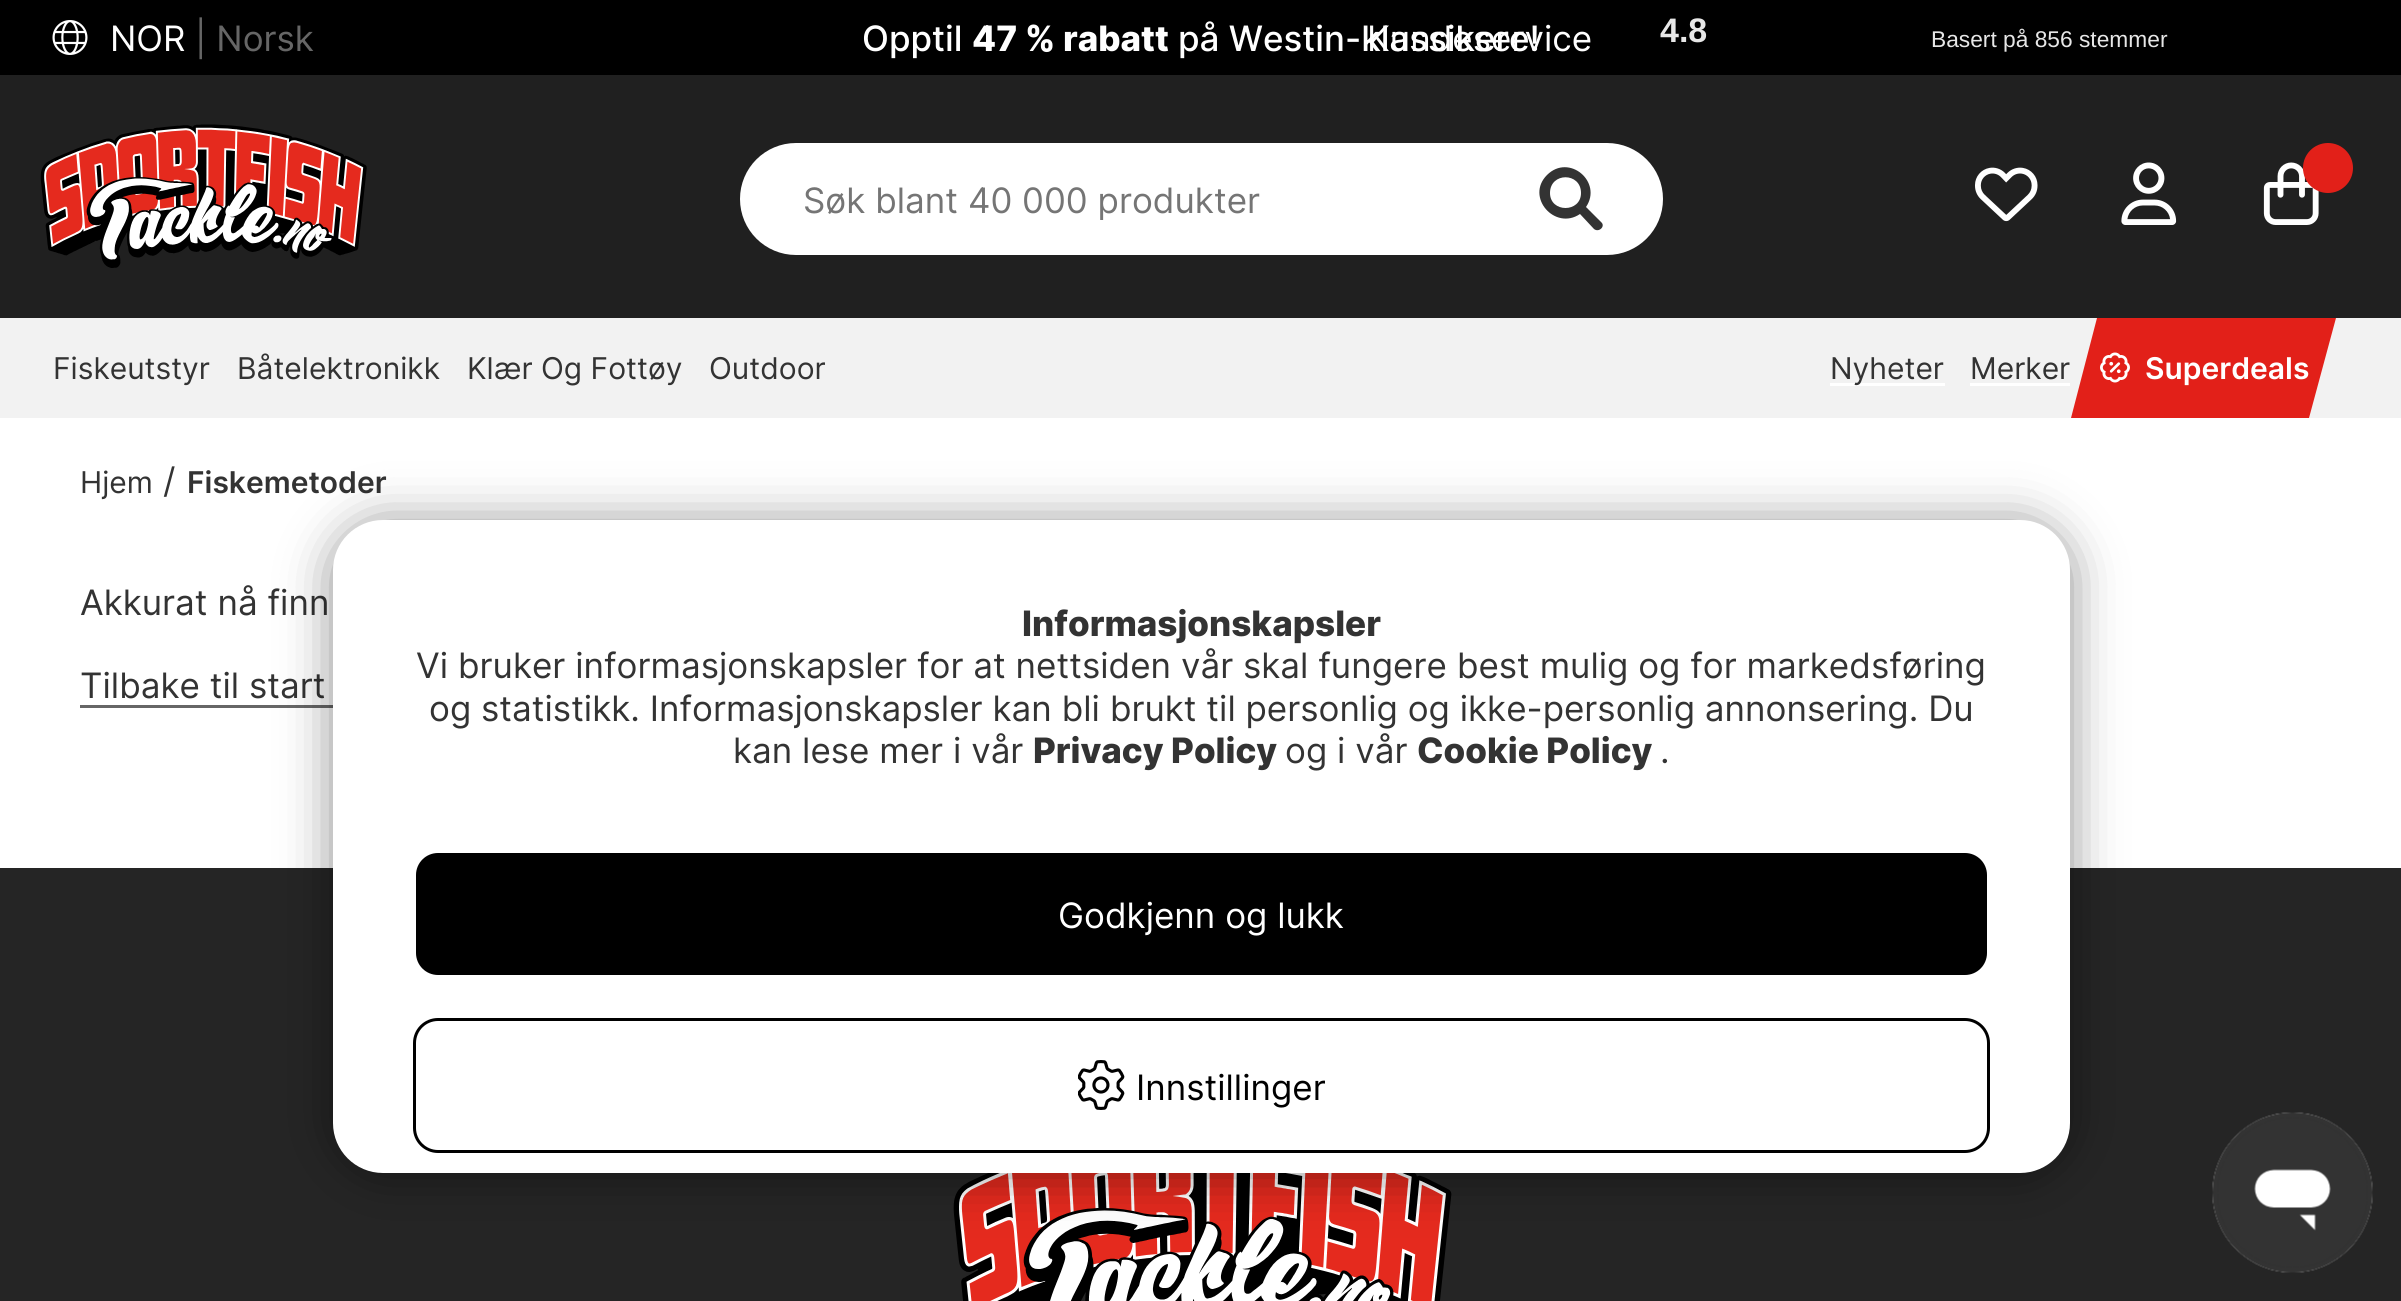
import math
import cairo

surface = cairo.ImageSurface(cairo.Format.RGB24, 2401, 1301)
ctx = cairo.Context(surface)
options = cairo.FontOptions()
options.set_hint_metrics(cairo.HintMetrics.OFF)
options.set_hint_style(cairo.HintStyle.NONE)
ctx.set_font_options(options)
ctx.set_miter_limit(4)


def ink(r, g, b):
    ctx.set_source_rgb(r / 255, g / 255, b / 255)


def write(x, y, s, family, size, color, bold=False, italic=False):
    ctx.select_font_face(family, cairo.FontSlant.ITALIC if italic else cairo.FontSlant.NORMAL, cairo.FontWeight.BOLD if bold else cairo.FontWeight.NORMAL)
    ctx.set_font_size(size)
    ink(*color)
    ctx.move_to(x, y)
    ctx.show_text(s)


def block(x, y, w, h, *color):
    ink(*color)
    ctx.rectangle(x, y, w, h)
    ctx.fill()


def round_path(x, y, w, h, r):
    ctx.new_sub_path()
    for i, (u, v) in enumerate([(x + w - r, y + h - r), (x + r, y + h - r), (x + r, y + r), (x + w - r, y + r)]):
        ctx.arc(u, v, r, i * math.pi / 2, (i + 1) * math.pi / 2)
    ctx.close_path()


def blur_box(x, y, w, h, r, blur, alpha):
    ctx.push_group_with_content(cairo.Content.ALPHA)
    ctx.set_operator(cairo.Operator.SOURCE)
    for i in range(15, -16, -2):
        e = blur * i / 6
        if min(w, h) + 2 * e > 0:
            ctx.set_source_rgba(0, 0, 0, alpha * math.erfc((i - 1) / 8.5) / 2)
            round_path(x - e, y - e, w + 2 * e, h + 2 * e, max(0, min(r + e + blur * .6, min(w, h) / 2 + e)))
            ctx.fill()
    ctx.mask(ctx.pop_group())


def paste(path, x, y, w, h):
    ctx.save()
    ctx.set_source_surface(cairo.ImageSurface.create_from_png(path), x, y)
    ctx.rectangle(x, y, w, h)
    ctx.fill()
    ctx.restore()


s1 = dict(family="Inter", size=35, color=(255, 255, 255))
s2 = dict(family="Inter", size=35, color=(102, 102, 102))
s3 = dict(family="Inter Medium", size=35, color=(255, 255, 255))
s4 = dict(family="Inter ExtraBold", size=35, color=(255, 255, 255))
s5 = dict(family="Liberation Sans", size=34, color=(231, 231, 231), bold=True)
s6 = dict(family="Liberation Sans", size=22.75, color=(231, 231, 231))
s7 = dict(family="Inter", size=35, color=(117, 117, 117))
s8 = dict(family="Inter", size=30, color=(51, 51, 51))
s9 = dict(family="Inter SemiBold", size=30, color=(255, 255, 255))
s10 = dict(family="Inter", size=35, color=(51, 51, 51))
s11 = dict(family="Inter SemiBold", size=30, color=(51, 51, 51))
s12 = dict(family="Inter ExtraBold", size=35, color=(51, 51, 51))
s13 = dict(family="Inter", size=35, color=(0, 0, 0))

ink(255, 255, 255)
ctx.paint()
block(0, 75, 2401, 243, 32, 32, 32)
block(0, 0, 2401, 75, 0, 0, 0)
paste("pic1.png", 52, 20, 36, 35)
write(110, 51, "NOR", **s1)
write(195, 51, "| Norsk", **s2)
write(862, 51, "Opptil", **s3)
write(972, 51, "47 % rabatt", **s4)
write(1178, 51, "på Westin-klassikere!", **s3)
write(1367, 51, "Kundeservice", **s1)
write(1660, 42, "4.8", **s5)
write(1931, 47, "Basert på 856 stemmer", **s6)
paste("pic2.png", 40, 124, 327, 144)
ink(255, 255, 255)
round_path(740, 143, 923, 112, 56)
ctx.fill()
ctx.save()
ctx.rectangle(803, 178, 797, 42)
ctx.clip()
write(803, 213, "Søk blant 40 000 produkter", **s7)
ctx.restore()
ink(51, 51, 51)
ctx.new_path()
ctx.move_to(1601, 222)
ctx.line_to(1586, 207)
ctx.curve_to(1603, 182, 1569, 153, 1547, 175)
ctx.curve_to(1525, 197, 1555, 231, 1580, 214)
ctx.line_to(1594, 229)
ctx.curve_to(1599, 233, 1606, 226, 1601, 222)
ctx.close_path()
ctx.move_to(1550, 193)
ctx.curve_to(1550, 172, 1581, 172, 1581, 193)
ctx.curve_to(1581, 213, 1550, 213, 1550, 193)
ctx.close_path()
ctx.fill()
paste("pic3.png", 1975, 167, 63, 55)
paste("pic4.png", 2121, 162, 56, 63)
paste("pic5.png", 2263, 162, 56, 63)
ink(226, 32, 25)
ctx.arc(2328, 168, 25, 0, 2 * math.pi)
ctx.fill()
block(0, 318, 2401, 100, 242, 242, 242)
write(53, 379, "Fiskeutstyr", **s8)
write(237, 379, "Båtelektronikk", **s8)
write(467, 379, "Klær Og Fottøy", **s8)
write(709, 379, "Outdoor", **s8)
block(1830, 383, 115, 3, 255, 255, 255)
write(1830, 379, "Nyheter", **s8)
write(1970, 379, "Merker", **s8)
block(1970, 383, 100, 3, 255, 255, 255)
ink(226, 32, 25)
ctx.new_path()
ctx.move_to(2097, 318)
ctx.line_to(2336, 318)
ctx.line_to(2309, 418)
ctx.line_to(2071, 418)
ctx.close_path()
ctx.fill()
paste("pic6.png", 2100, 352, 30, 31)
write(2145, 379, "Superdeals", **s9)
write(80, 493, "Hjem", **s8)
write(163, 493, "/", **s10)
write(187, 493, "Fiskemetoder", **s11)
write(80, 615, "Akkurat nå finn", **s10)
block(80, 705, 253, 3, 102, 102, 102)
write(80, 698, "Tilbake til start", **s10)
block(0, 868, 2401, 433, 37, 37, 37)
paste("pic7.png", 953, 1173, 499, 128)
ink(0, 0, 0)
blur_box(333, 523, 1737, 652, 50, 25, 0.44)
ink(255, 255, 255)
round_path(333, 520, 1737, 653, 50)
ctx.fill()
write(1022, 636, "Informasjonskapsler", **s12)
write(416, 678, "Vi bruker informasjonskapsler for at nettsiden vår skal fungere best mulig og for markedsføring", **s10)
write(429, 721, "og statistikk. Informasjonskapsler kan bli brukt til personlig og ikke-personlig annonsering. Du", **s10)
write(733, 763, "kan lese mer i vår", **s10)
write(1033, 763, "Privacy Policy", **s12)
write(1285, 763, "og i vår", **s10)
write(1417, 763, "Cookie Policy", **s12)
write(1660, 763, ".", **s10)
ink(0, 0, 0)
round_path(414.5, 851.5, 1574, 125, 23.5)
ctx.fill_preserve()
ink(255, 255, 255)
ctx.set_line_width(3)
ctx.stroke()
write(1058, 928, "Godkjenn og lukk", **s1)
round_path(414.5, 1019.5, 1574, 132, 23.5)
ink(0, 0, 0)
ctx.stroke()
paste("pic8.png", 1078, 1060, 47, 50)
write(1136, 1100, "Innstillinger", **s13)
paste("pic9.png", 2212, 1112, 161, 161)
surface.write_to_png("screenshot.png")
